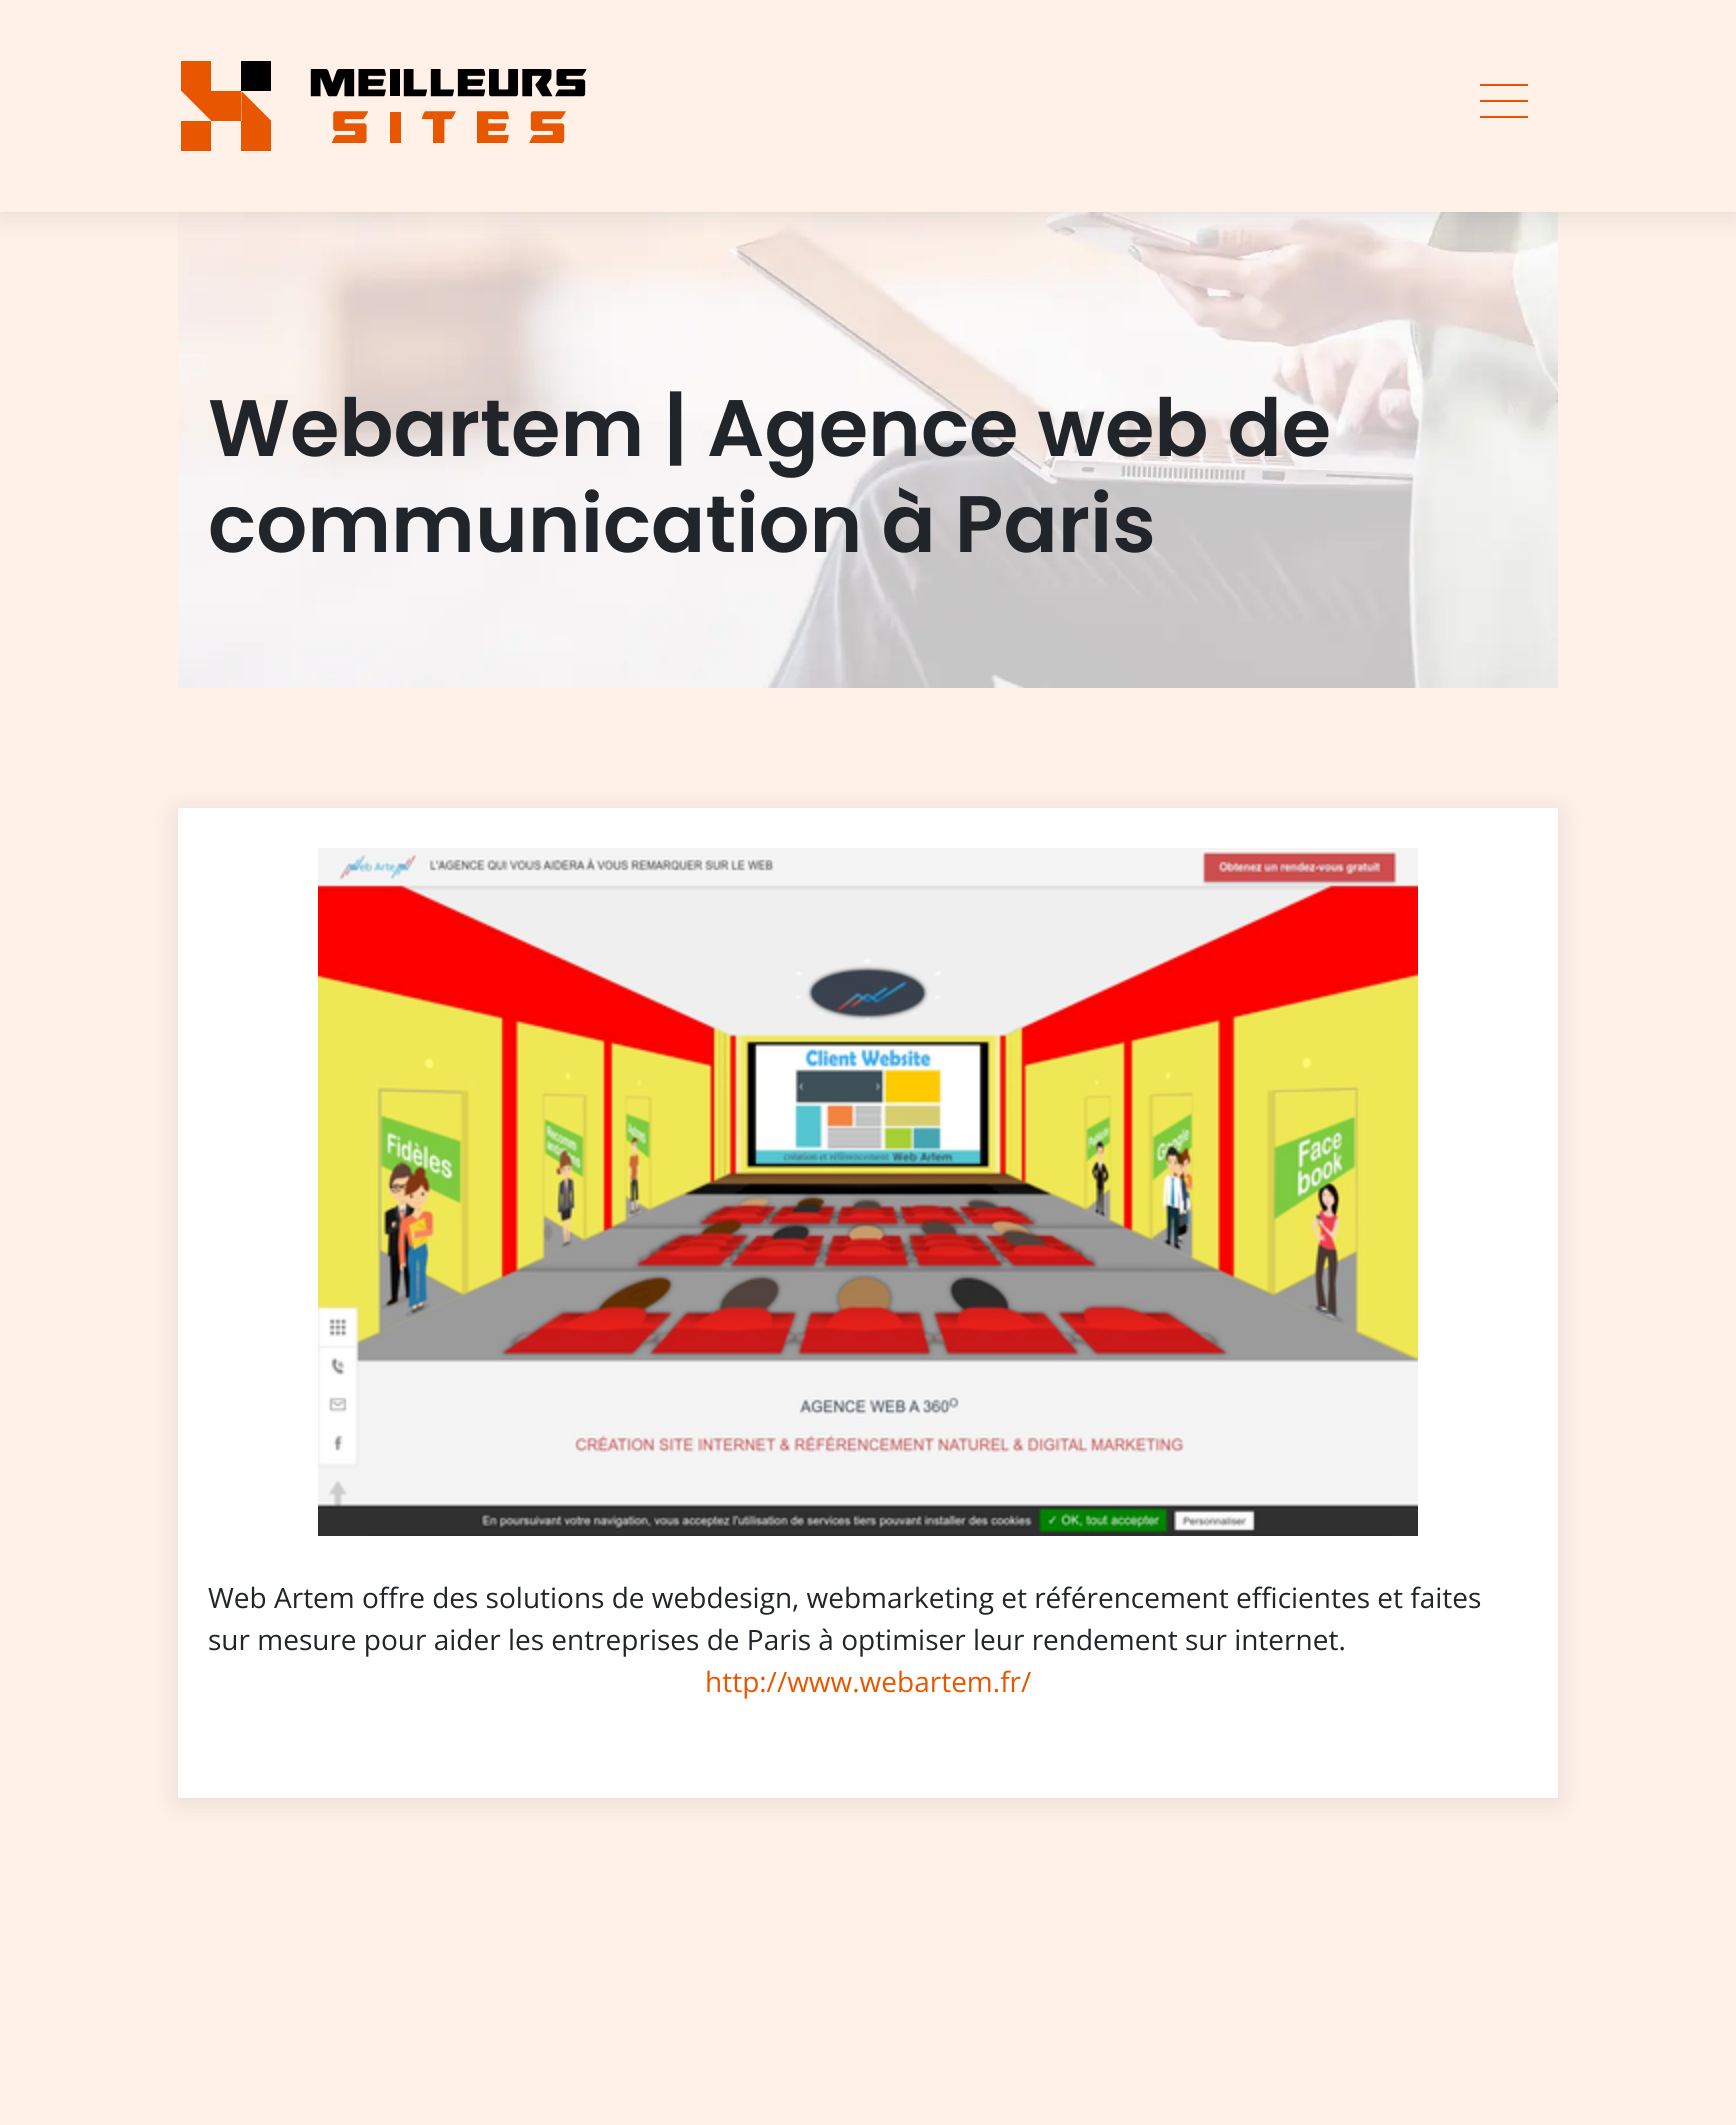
import math
import cairo

surface = cairo.ImageSurface(cairo.Format.RGB24, 1736, 2125)
ctx = cairo.Context(surface)
options = cairo.FontOptions()
options.set_hint_metrics(cairo.HintMetrics.OFF)
options.set_hint_style(cairo.HintStyle.NONE)
ctx.set_font_options(options)
ctx.set_miter_limit(4)


def ink(r, g, b):
    ctx.set_source_rgb(r / 255, g / 255, b / 255)


def write(x, y, s, family, size, color, bold=False, italic=False):
    ctx.select_font_face(family, cairo.FontSlant.ITALIC if italic else cairo.FontSlant.NORMAL, cairo.FontWeight.BOLD if bold else cairo.FontWeight.NORMAL)
    ctx.set_font_size(size)
    ink(*color)
    ctx.move_to(x, y)
    ctx.show_text(s)


def block(x, y, w, h, *color):
    ink(*color)
    ctx.rectangle(x, y, w, h)
    ctx.fill()


def round_path(x, y, w, h, r):
    ctx.new_sub_path()
    for i, (u, v) in enumerate([(x + w - r, y + h - r), (x + r, y + h - r), (x + r, y + r), (x + w - r, y + r)]):
        ctx.arc(u, v, r, i * math.pi / 2, (i + 1) * math.pi / 2)
    ctx.close_path()


def blur_box(x, y, w, h, r, blur, alpha):
    ctx.push_group_with_content(cairo.Content.ALPHA)
    ctx.set_operator(cairo.Operator.SOURCE)
    for i in range(15, -16, -2):
        e = blur * i / 6
        if min(w, h) + 2 * e > 0:
            ctx.set_source_rgba(0, 0, 0, alpha * math.erfc((i - 1) / 8.5) / 2)
            round_path(x - e, y - e, w + 2 * e, h + 2 * e, max(0, min(r + e + blur * .6, min(w, h) / 2 + e)))
            ctx.fill()
    ctx.mask(ctx.pop_group())


def paste(path, x, y, w, h):
    ctx.save()
    ctx.set_source_surface(cairo.ImageSurface.create_from_png(path), x, y)
    ctx.rectangle(x, y, w, h)
    ctx.fill()
    ctx.restore()


s1 = dict(family="Poppins SemiBold", size=80, color=(33, 37, 41))
s2 = dict(family="Open Sans", size=28, color=(33, 37, 41))
s3 = dict(family="Open Sans", size=28, color=(233, 86, 0))

ink(255, 241, 232)
ctx.paint()
paste("pic2.png", 178, 212, 1380, 476)
ink(0, 0, 0)
blur_box(0, 4, 1736, 212, 0, 13, 0.1)
block(0, 0, 1736, 212, 255, 241, 232)
paste("pic1.png", 181, 61, 406, 90)
block(1480, 84, 48, 2, 233, 86, 0)
block(1480, 100, 48, 2, 233, 86, 0)
block(1480, 116, 48, 2, 233, 86, 0)
write(208, 456, "Webartem | Agence web de", **s1)
write(208, 552, "communication à Paris", **s1)
ink(0, 0, 0)
blur_box(178, 812, 1380, 990, 0, 13, 0.1)
block(178, 808, 1380, 990, 255, 255, 255)
paste("pic3.png", 318, 848, 1100, 688)
write(208, 1608, "Web Artem offre des solutions de webdesign, webmarketing et référencement efficientes et faites", **s2)
write(208, 1650, "sur mesure pour aider les entreprises de Paris à optimiser leur rendement sur internet.", **s2)
write(705, 1692, "http://www.webartem.fr/", **s3)
surface.write_to_png("screenshot.png")
